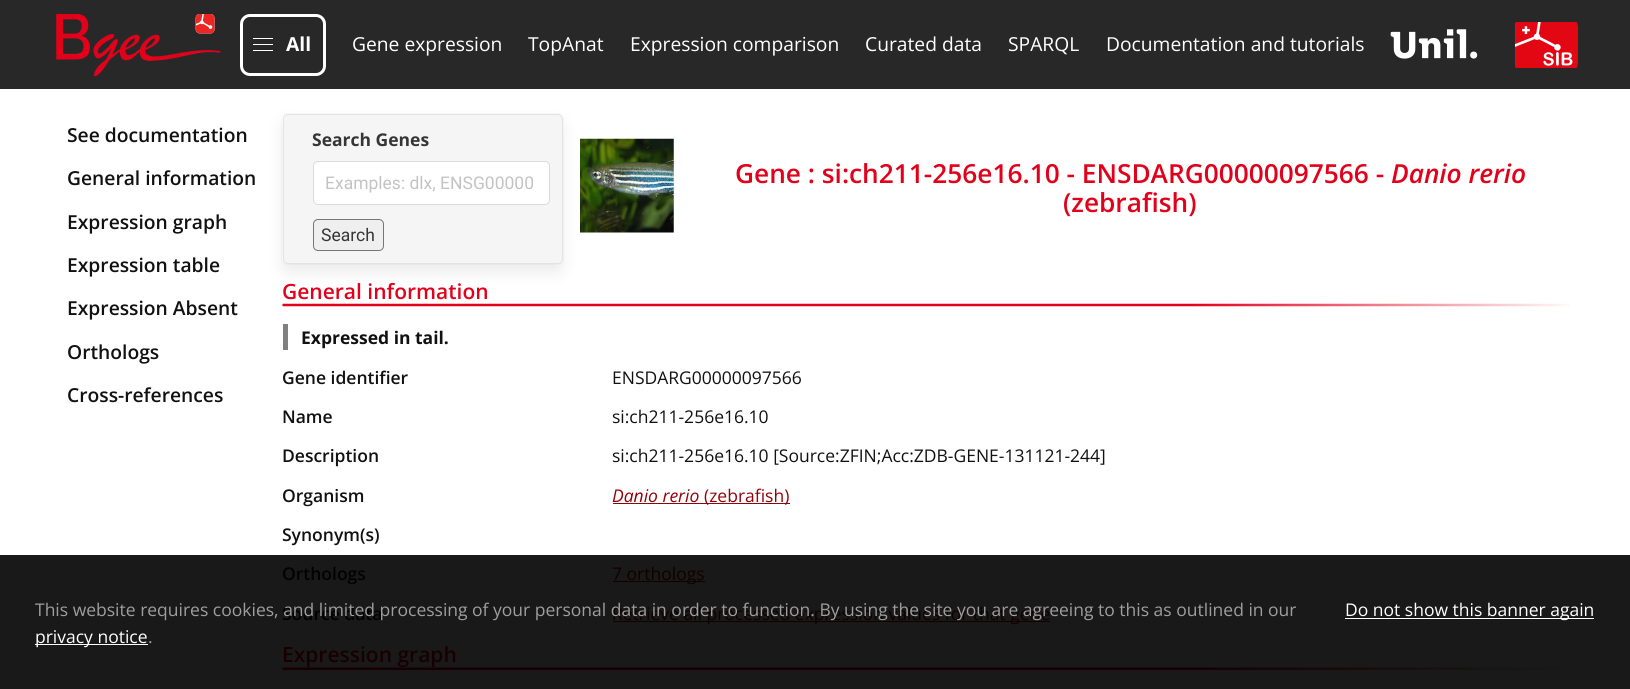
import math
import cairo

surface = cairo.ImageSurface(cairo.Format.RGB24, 1630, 689)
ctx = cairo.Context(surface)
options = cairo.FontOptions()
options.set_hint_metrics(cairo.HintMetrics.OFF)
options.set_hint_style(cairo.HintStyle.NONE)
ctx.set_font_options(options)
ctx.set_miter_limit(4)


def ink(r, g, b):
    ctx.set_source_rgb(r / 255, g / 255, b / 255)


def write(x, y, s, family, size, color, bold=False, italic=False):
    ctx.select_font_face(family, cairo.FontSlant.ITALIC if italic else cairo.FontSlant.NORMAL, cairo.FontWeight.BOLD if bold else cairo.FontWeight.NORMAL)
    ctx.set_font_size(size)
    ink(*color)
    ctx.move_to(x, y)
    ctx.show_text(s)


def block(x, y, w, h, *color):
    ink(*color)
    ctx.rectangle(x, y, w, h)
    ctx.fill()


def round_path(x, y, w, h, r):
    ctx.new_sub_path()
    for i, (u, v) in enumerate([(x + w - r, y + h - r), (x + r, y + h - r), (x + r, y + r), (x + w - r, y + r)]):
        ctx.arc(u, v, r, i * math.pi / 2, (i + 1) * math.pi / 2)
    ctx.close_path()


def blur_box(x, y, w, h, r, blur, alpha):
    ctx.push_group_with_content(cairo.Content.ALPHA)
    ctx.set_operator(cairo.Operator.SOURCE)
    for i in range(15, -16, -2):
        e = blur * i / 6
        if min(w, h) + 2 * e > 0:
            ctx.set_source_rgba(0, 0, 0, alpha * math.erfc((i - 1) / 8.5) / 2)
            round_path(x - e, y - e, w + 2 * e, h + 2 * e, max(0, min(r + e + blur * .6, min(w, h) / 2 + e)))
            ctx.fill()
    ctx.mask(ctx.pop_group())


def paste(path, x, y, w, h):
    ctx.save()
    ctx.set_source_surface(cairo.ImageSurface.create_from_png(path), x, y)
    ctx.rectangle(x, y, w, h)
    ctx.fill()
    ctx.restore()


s1 = dict(family="Open Sans", size=19.25, color=(255, 255, 255), bold=True)
s2 = dict(family="Open Sans", size=19.25, color=(255, 255, 255))
s3 = dict(family="Open Sans SemiBold", size=19.25, color=(17, 17, 17))
s4 = dict(family="Open Sans", size=17.5, color=(54, 54, 54), bold=True)
s5 = dict(family="Roboto", size=17.5, color=(195, 195, 195))
s6 = dict(family="Roboto", size=17.5, color=(54, 54, 54))
s7 = dict(family="Open Sans SemiBold", size=26.25, color=(226, 1, 27))
s8 = dict(family="Open Sans SemiBold", size=26.25, color=(226, 1, 27), italic=True)
s9 = dict(family="Open Sans SemiBold", size=21, color=(226, 1, 27))
s10 = dict(family="Open Sans", size=17.5, color=(17, 17, 17), bold=True)
s11 = dict(family="Open Sans SemiBold", size=17.5, color=(17, 17, 17))
s12 = dict(family="Open Sans", size=17.5, color=(17, 17, 17))
s13 = dict(family="Open Sans", size=17.5, color=(146, 2, 9), italic=True)
s14 = dict(family="Open Sans", size=17.5, color=(146, 2, 9))
s15 = dict(family="Open Sans SemiBold", size=17.5, color=(2, 2, 2))
s16 = dict(family="Open Sans", size=17.5, color=(15, 0, 1))
s17 = dict(family="Open Sans SemiBold", size=21, color=(23, 0, 3))
s18 = dict(family="Open Sans", size=17.5, color=(158, 158, 158))
s19 = dict(family="Open Sans", size=17.5, color=(255, 255, 255))

ink(255, 255, 255)
ctx.paint()
block(0, 555, 1630, 134, 25, 25, 25)
block(0, 0, 1630, 89, 40, 40, 40)
paste("pic1.png", 56, 14, 165, 62)
round_path(241.5, 15.5, 83, 59, 8.5)
ink(255, 255, 255)
ctx.set_line_width(3)
ctx.stroke()
block(253, 38, 20, 1, 255, 255, 255)
block(253, 44, 20, 1, 255, 255, 255)
block(253, 50, 20, 1, 255, 255, 255)
write(286, 51, "All", **s1)
write(352, 51, "Gene expression", **s2)
write(528, 51, "TopAnat", **s2)
write(630, 51, "Expression comparison", **s2)
write(865, 51, "Curated data", **s2)
write(1008, 51, "SPARQL", **s2)
write(1106, 51, "Documentation and tutorials", **s2)
paste("pic2.png", 1390, 29, 88, 30)
paste("pic3.png", 1515, 22, 63, 46)
write(67, 142, "See documentation", **s3)
write(67, 185, "General information", **s3)
write(67, 229, "Expression graph", **s3)
write(67, 272, "Expression table", **s3)
write(67, 315, "Expression Absent", **s3)
write(67, 359, "Orthologs", **s3)
write(67, 402, "Cross-references", **s3)
round_path(281.5, 113.5, 282, 151, 5.5)
ink(250, 250, 250)
ctx.set_line_width(1)
ctx.stroke()
ink(10, 10, 10)
blur_box(285, 125, 275, 145, 2.5, 9, 0.1)
ink(245, 245, 245)
round_path(283.5, 114.5, 279, 149, 4.5)
ctx.fill_preserve()
ink(227, 227, 227)
ctx.stroke()
write(312, 146, "Search Genes", **s4)
ink(255, 255, 255)
round_path(313.5, 161.5, 236, 43, 4.5)
ctx.fill_preserve()
ink(219, 219, 219)
ctx.stroke()
write(325, 189, "Examples: dlx, ENSG00000", **s5)
ink(239, 239, 239)
round_path(313.5, 219.5, 70, 31, 4.5)
ctx.fill_preserve()
ink(118, 118, 118)
ctx.stroke()
write(321, 241, "Search", **s6)
paste("pic4.png", 580, 138, 94, 95)
write(735, 183, "Gene : si:ch211-256e16.10 - ENSDARG00000097566 -", **s7)
write(1391, 183, "Danio rerio", **s8)
write(1063, 212, "(zebrafish)", **s7)
paste("pic5.png", 282, 303, 1288, 4)
write(282, 299, "General information", **s9)
block(283, 324, 5, 26, 128, 128, 128)
write(301, 344, "Expressed in tail.", **s10)
write(282, 384, "Gene identifier", **s11)
write(612, 384, "ENSDARG00000097566", **s12)
write(282, 423, "Name", **s11)
write(612, 423, "si:ch211-256e16.10", **s12)
write(282, 462, "Description", **s11)
write(612, 462, "si:ch211-256e16.10 [Source:ZFIN;Acc:ZDB-GENE-131121-244]", **s12)
write(282, 502, "Organism", **s11)
write(612, 502, "Danio rerio", **s13)
block(613, 503, 177, 1, 146, 2, 9)
write(704, 502, "(zebrafish)", **s14)
write(282, 541, "Synonym(s)", **s11)
write(282, 580, "Orthologs", **s15)
block(613, 581, 92, 1, 15, 0, 1)
write(612, 580, "7 orthologs", **s16)
write(282, 620, "Source data", **s15)
block(613, 621, 437, 1, 15, 0, 1)
write(612, 620, "Retrieve all processed expression values for that gene", **s16)
paste("pic6.png", 282, 667, 1288, 3)
write(282, 662, "Expression graph", **s17)
write(35, 616, "This website requires cookies, and limited processing of your personal data in order to function. By using the site you are agreeing to this as outlined in our", **s18)
block(35, 644, 113, 1, 255, 255, 255)
write(35, 643, "privacy notice", **s19)
write(148, 643, ".", **s18)
block(1345, 618, 249, 1, 255, 255, 255)
write(1345, 616, "Do not show this banner again", **s19)
surface.write_to_png("screenshot.png")
